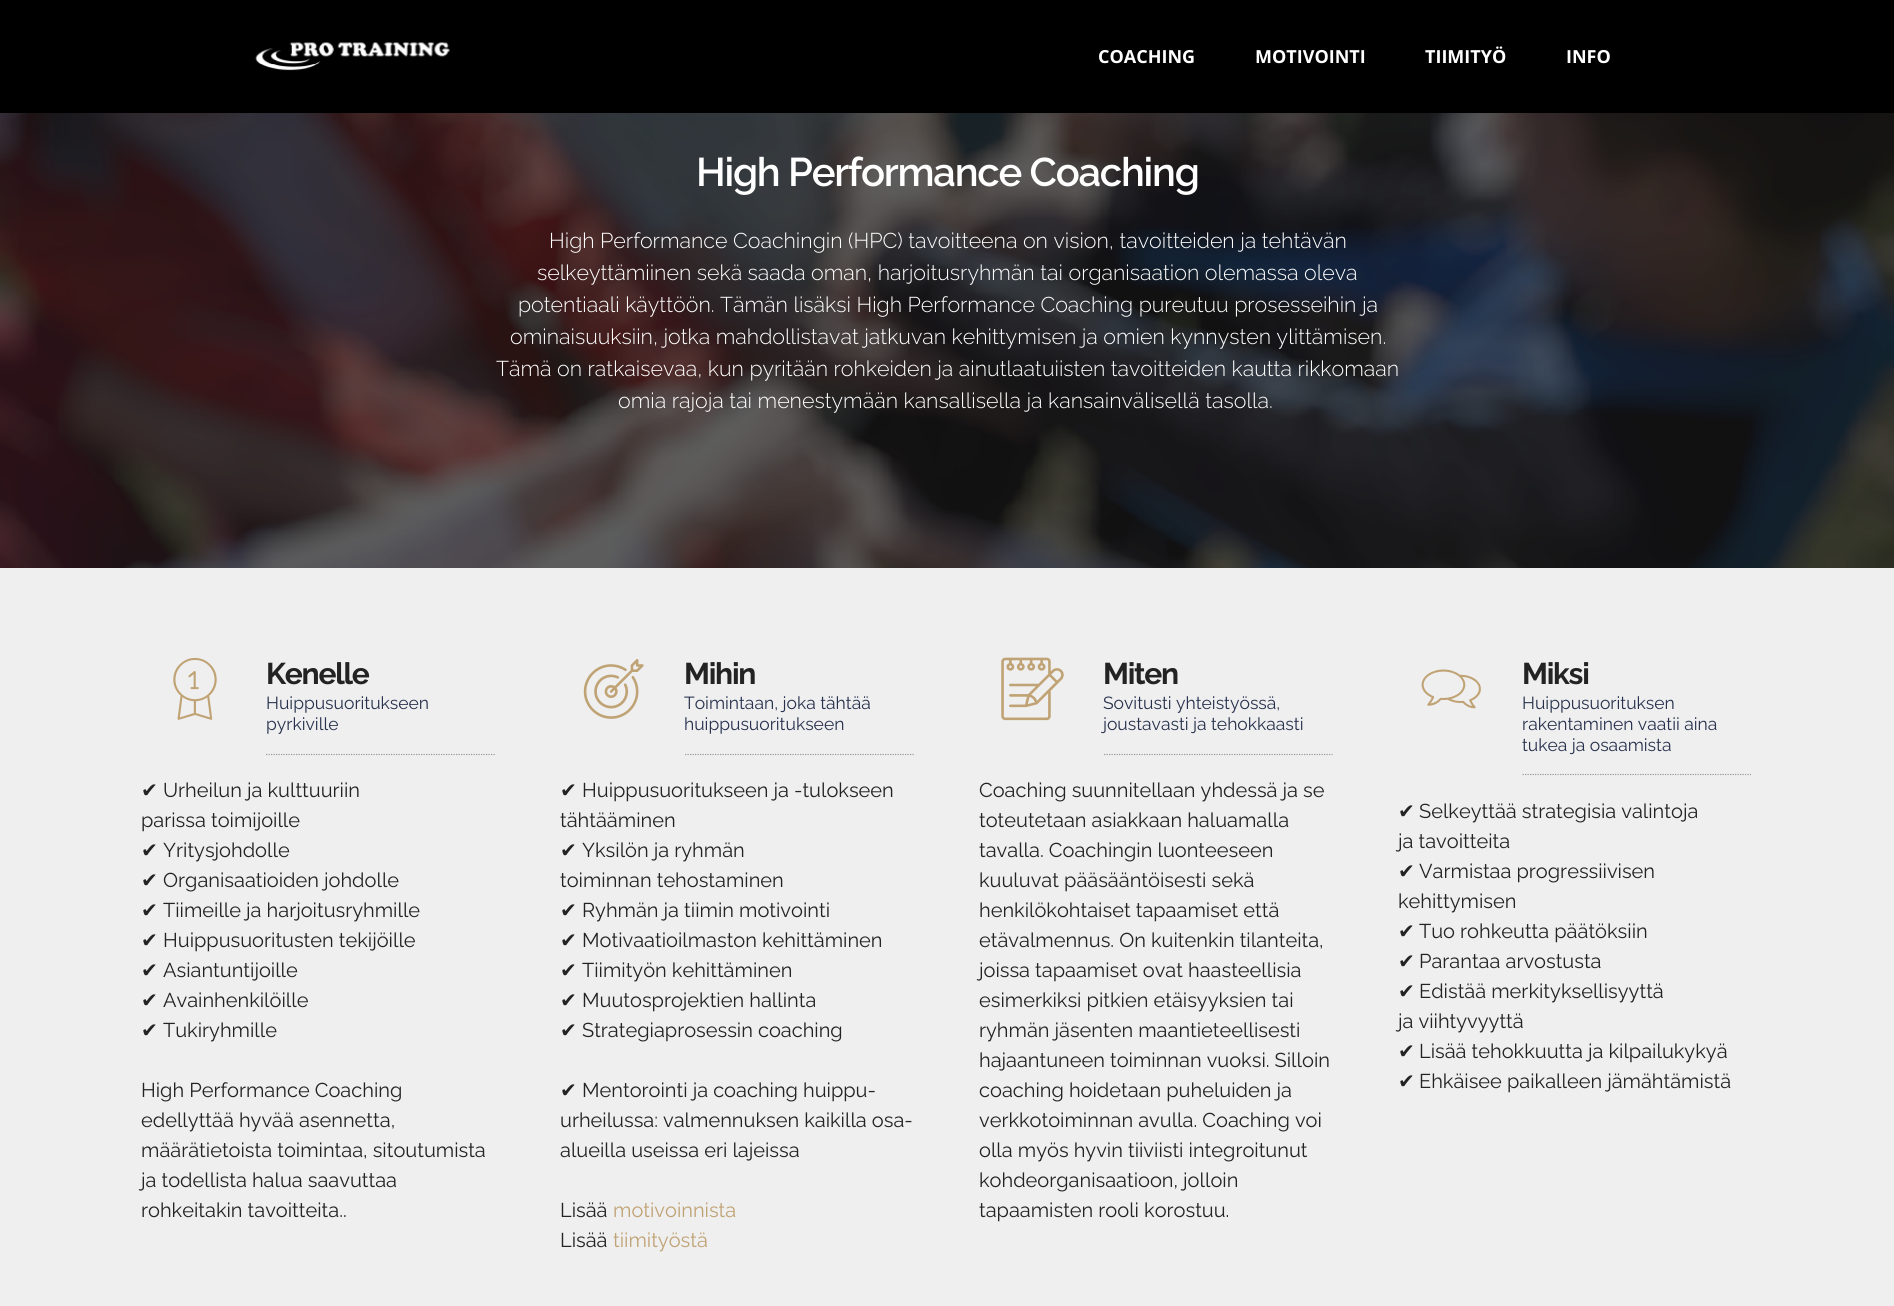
import math
import cairo

surface = cairo.ImageSurface(cairo.Format.RGB24, 1894, 1306)
ctx = cairo.Context(surface)
options = cairo.FontOptions()
options.set_hint_metrics(cairo.HintMetrics.OFF)
options.set_hint_style(cairo.HintStyle.NONE)
ctx.set_font_options(options)
ctx.set_miter_limit(4)


def ink(r, g, b):
    ctx.set_source_rgb(r / 255, g / 255, b / 255)


def write(x, y, s, family, size, color, bold=False, italic=False):
    ctx.select_font_face(family, cairo.FontSlant.ITALIC if italic else cairo.FontSlant.NORMAL, cairo.FontWeight.BOLD if bold else cairo.FontWeight.NORMAL)
    ctx.set_font_size(size)
    ink(*color)
    ctx.move_to(x, y)
    ctx.show_text(s)


def write_spaced(x, y, s, letter, word):
    ctx.move_to(x, y)
    for ch in s:
        ctx.show_text(ch)
        ctx.rel_move_to(letter + word * (ch == ' '), 0)


def block(x, y, w, h, *color):
    ink(*color)
    ctx.rectangle(x, y, w, h)
    ctx.fill()


def paste(path, x, y, w, h):
    ctx.save()
    ctx.set_source_surface(cairo.ImageSurface.create_from_png(path), x, y)
    ctx.rectangle(x, y, w, h)
    ctx.fill()
    ctx.restore()


s1 = dict(family="Open Sans", size=18, color=(255, 255, 255), bold=True)
s2 = dict(family="Raleway Light", size=21.4, color=(255, 255, 255))
s3 = dict(family="Raleway", size=17.5, color=(40, 50, 78))
s4 = dict(family="DejaVu Sans", size=20, color=(35, 35, 35))
s5 = dict(family="Raleway", size=20, color=(35, 35, 35))
s6 = dict(family="Raleway", size=20, color=(192, 163, 117))

ink(255, 255, 255)
ctx.paint()
block(0, 0, 1894, 113, 0, 0, 0)
paste("pic1.png", 255, 42, 195, 29)
write(1098, 63, "COACHING", **s1)
write(1255, 63, "MOTIVOINTI", **s1)
write(1425, 63, "TIIMITYÖ", **s1)
write(1566, 63, "INFO", **s1)
paste("pic2.png", 0, 113, 1894, 455)
ctx.select_font_face("Raleway SemiBold")
ctx.set_font_size(40)
write_spaced(696, 186, "High Performance Coaching", -1.25, 0)
write(549, 248, "High Performance Coachingin (HPC) tavoitteena on vision, tavoitteiden ja tehtävän", **s2)
write(537, 280, "selkeyttämiinen sekä saada oman, harjoitusryhmän tai organisaation olemassa oleva", **s2)
write(518, 312, "potentiaali käyttöön. Tämän lisäksi High Performance Coaching pureutuu prosesseihin ja", **s2)
write(510, 344, "ominaisuuksiin, jotka mahdollistavat jatkuvan kehittymisen ja omien kynnysten ylittämisen.", **s2)
write(496, 376, "Tämä on ratkaisevaa, kun pyritään rohkeiden ja ainutlaatuiisten tavoitteiden kautta rikkomaan", **s2)
write(618, 408, "omia rajoja tai menestymään kansallisella ja kansainvälisellä tasolla.", **s2)
block(0, 568, 1894, 738, 239, 239, 239)
paste("pic3.png", 173, 657, 44, 63)
ctx.select_font_face("Raleway", cairo.FontSlant.NORMAL, cairo.FontWeight.BOLD)
ctx.set_font_size(30)
ink(35, 35, 35)
write_spaced(266, 684, "Kenelle", -1.25, 0)
ctx.new_path()
ctx.move_to(266, 754.5)
ctx.line_to(495, 754.5)
ink(153, 153, 153)
ctx.set_line_width(1.2)
ctx.set_dash([1.25, 1.25])
ctx.stroke()
write(266, 709, "Huippusuoritukseen", **s3)
write(266, 730, "pyrkiville", **s3)
write(141, 797, "✔", **s4)
write(163, 797, "Urheilun ja kulttuuriin", **s5)
write(141, 827, "parissa toimijoille", **s5)
write(141, 857, "✔", **s4)
write(163, 857, "Yritysjohdolle", **s5)
write(141, 887, "✔", **s4)
write(163, 887, "Organisaatioiden johdolle", **s5)
write(141, 917, "✔", **s4)
write(163, 917, "Tiimeille ja harjoitusryhmille", **s5)
write(141, 947, "✔", **s4)
write(163, 947, "Huippusuoritusten tekijöille", **s5)
write(141, 977, "✔", **s4)
write(163, 977, "Asiantuntijoille", **s5)
write(141, 1007, "✔", **s4)
write(163, 1007, "Avainhenkilöille", **s5)
write(141, 1037, "✔", **s4)
write(163, 1037, "Tukiryhmille", **s5)
write(141, 1097, "High Performance Coaching", **s5)
write(141, 1127, "edellyttää hyvää asennetta,", **s5)
write(141, 1157, "määrätietoista toimintaa, sitoutumista", **s5)
write(141, 1187, "ja todellista halua saavuttaa", **s5)
write(141, 1217, "rohkeitakin tavoitteita..", **s5)
paste("pic4.png", 583, 659, 61, 60)
ctx.select_font_face("Raleway", cairo.FontSlant.NORMAL, cairo.FontWeight.BOLD)
ctx.set_font_size(30)
write_spaced(684, 684, "Mihin", -1.25, 0)
ctx.new_path()
ctx.move_to(685, 754.5)
ctx.line_to(914, 754.5)
ink(153, 153, 153)
ctx.stroke()
write(684, 709, "Toimintaan, joka tähtää", **s3)
write(684, 730, "huippusuoritukseen", **s3)
write(560, 797, "✔", **s4)
write(582, 797, "Huippusuoritukseen ja -tulokseen", **s5)
write(560, 827, "tähtääminen", **s5)
write(560, 857, "✔", **s4)
write(582, 857, "Yksilön ja ryhmän", **s5)
write(560, 887, "toiminnan tehostaminen", **s5)
write(560, 917, "✔", **s4)
write(582, 917, "Ryhmän ja tiimin motivointi", **s5)
write(560, 947, "✔", **s4)
write(582, 947, "Motivaatioilmaston kehittäminen", **s5)
write(560, 977, "✔", **s4)
write(582, 977, "Tiimityön kehittäminen", **s5)
write(560, 1007, "✔", **s4)
write(582, 1007, "Muutosprojektien hallinta", **s5)
write(560, 1037, "✔", **s4)
write(582, 1037, "Strategiaprosessin coaching", **s5)
write(560, 1097, "✔", **s4)
write(582, 1097, "Mentorointi ja coaching huippu-", **s5)
write(560, 1127, "urheilussa: valmennuksen kaikilla osa-", **s5)
write(560, 1157, "alueilla useissa eri lajeissa", **s5)
write(560, 1217, "Lisää", **s5)
write(613, 1217, "motivoinnista", **s6)
write(560, 1247, "Lisää", **s5)
write(613, 1247, "tiimityöstä", **s6)
paste("pic5.png", 1001, 657, 63, 64)
ctx.select_font_face("Raleway", cairo.FontSlant.NORMAL, cairo.FontWeight.BOLD)
ctx.set_font_size(30)
ink(35, 35, 35)
write_spaced(1103, 684, "Miten", -1.25, 0)
ctx.new_path()
ctx.move_to(1104, 754.5)
ctx.line_to(1332.5, 754.5)
ink(153, 153, 153)
ctx.stroke()
write(1103, 709, "Sovitusti yhteistyössä,", **s3)
write(1103, 730, "joustavasti ja tehokkaasti", **s3)
write(979, 797, "Coaching suunnitellaan yhdessä ja se", **s5)
write(979, 827, "toteutetaan asiakkaan haluamalla", **s5)
write(979, 857, "tavalla. Coachingin luonteeseen", **s5)
write(979, 887, "kuuluvat pääsääntöisesti sekä", **s5)
write(979, 917, "henkilökohtaiset tapaamiset että", **s5)
write(979, 947, "etävalmennus. On kuitenkin tilanteita,", **s5)
write(979, 977, "joissa tapaamiset ovat haasteellisia", **s5)
write(979, 1007, "esimerkiksi pitkien etäisyyksien tai", **s5)
write(979, 1037, "ryhmän jäsenten maantieteellisesti", **s5)
write(979, 1067, "hajaantuneen toiminnan vuoksi. Silloin", **s5)
write(979, 1097, "coaching hoidetaan puheluiden ja", **s5)
write(979, 1127, "verkkotoiminnan avulla. Coaching voi", **s5)
write(979, 1157, "olla myös hyvin tiiviisti integroitunut", **s5)
write(979, 1187, "kohdeorganisaatioon, jolloin", **s5)
write(979, 1217, "tapaamisten rooli korostuu.", **s5)
paste("pic6.png", 1421, 669, 60, 40)
ctx.select_font_face("Raleway", cairo.FontSlant.NORMAL, cairo.FontWeight.BOLD)
ctx.set_font_size(30)
write_spaced(1522, 684, "Miksi", -1.25, 0)
ctx.new_path()
ctx.move_to(1522.5, 774.5)
ctx.line_to(1751, 774.5)
ink(153, 153, 153)
ctx.stroke()
write(1522, 709, "Huippusuorituksen", **s3)
write(1522, 730, "rakentaminen vaatii aina", **s3)
write(1522, 751, "tukea ja osaamista", **s3)
write(1398, 818, "✔", **s4)
write(1419, 818, "Selkeyttää strategisia valintoja", **s5)
write(1398, 848, "ja tavoitteita", **s5)
write(1398, 878, "✔", **s4)
write(1419, 878, "Varmistaa progressiivisen", **s5)
write(1398, 908, "kehittymisen", **s5)
write(1398, 938, "✔", **s4)
write(1419, 938, "Tuo rohkeutta päätöksiin", **s5)
write(1398, 968, "✔", **s4)
write(1419, 968, "Parantaa arvostusta", **s5)
write(1398, 998, "✔", **s4)
write(1419, 998, "Edistää merkityksellisyyttä", **s5)
write(1398, 1028, "ja viihtyvyyttä", **s5)
write(1398, 1058, "✔", **s4)
write(1419, 1058, "Lisää tehokkuutta ja kilpailukykyä", **s5)
write(1398, 1088, "✔", **s4)
write(1419, 1088, "Ehkäisee paikalleen jämähtämistä", **s5)
surface.write_to_png("screenshot.png")
